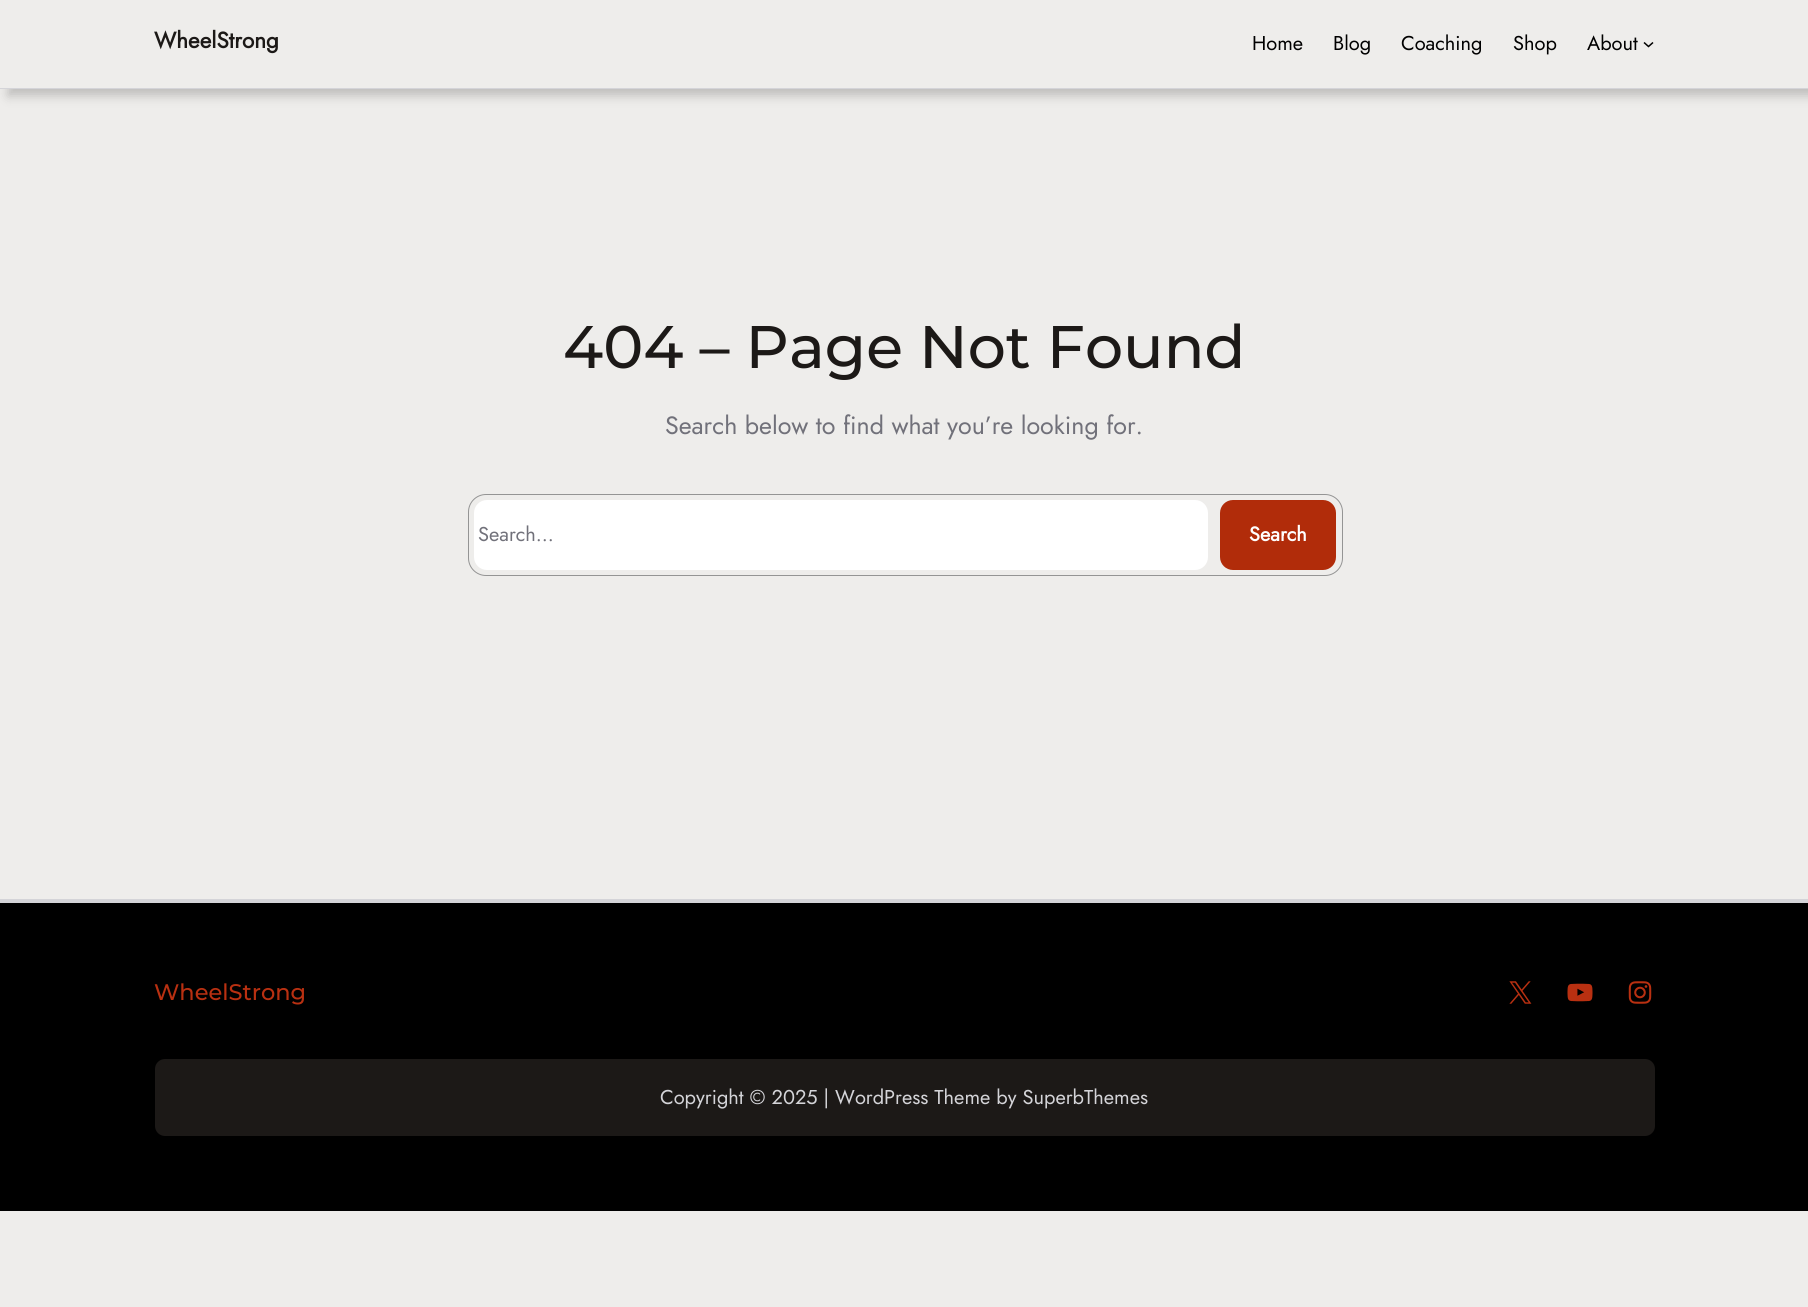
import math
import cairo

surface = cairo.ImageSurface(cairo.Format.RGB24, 1808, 1307)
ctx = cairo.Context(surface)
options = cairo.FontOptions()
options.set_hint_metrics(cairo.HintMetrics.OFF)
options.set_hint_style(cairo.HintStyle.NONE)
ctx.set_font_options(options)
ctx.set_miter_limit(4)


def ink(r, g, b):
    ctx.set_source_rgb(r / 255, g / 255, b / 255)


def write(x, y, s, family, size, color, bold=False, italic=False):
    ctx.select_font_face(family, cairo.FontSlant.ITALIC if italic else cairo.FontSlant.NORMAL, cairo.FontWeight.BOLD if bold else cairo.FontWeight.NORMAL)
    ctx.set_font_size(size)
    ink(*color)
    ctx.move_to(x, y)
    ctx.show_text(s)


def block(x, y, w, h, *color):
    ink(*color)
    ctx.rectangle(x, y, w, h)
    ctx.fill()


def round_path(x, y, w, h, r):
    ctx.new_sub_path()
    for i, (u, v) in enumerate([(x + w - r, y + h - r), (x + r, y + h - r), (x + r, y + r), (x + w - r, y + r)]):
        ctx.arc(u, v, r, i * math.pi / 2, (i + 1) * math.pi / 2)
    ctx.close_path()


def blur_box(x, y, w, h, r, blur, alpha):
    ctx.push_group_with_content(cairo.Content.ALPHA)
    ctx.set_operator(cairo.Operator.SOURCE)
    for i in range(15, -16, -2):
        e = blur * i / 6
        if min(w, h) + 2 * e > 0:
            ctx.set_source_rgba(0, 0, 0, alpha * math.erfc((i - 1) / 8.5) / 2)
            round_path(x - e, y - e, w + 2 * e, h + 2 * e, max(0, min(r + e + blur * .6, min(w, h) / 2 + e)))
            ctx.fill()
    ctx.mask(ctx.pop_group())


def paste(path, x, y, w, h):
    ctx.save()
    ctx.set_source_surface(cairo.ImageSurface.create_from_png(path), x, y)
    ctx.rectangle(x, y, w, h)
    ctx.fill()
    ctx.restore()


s1 = dict(family="Jost", size=22.5, color=(28, 25, 23), bold=True)
s2 = dict(family="Jost", size=20, color=(0, 0, 0))
s3 = dict(family="Montserrat Medium", size=60, color=(28, 25, 23))
s4 = dict(family="Jost", size=25, color=(113, 113, 122))
s5 = dict(family="Jost", size=20, color=(113, 113, 122))
s6 = dict(family="Jost", size=20, color=(255, 255, 255), bold=True)
s7 = dict(family="Montserrat Medium", size=22.5, color=(185, 48, 17))
s8 = dict(family="Jost", size=20, color=(212, 212, 216))

ink(238, 237, 235)
ctx.paint()
ink(0, 0, 0)
blur_box(8, 8, 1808, 88, 0, 5.5, 0.2)
block(0, 0, 1808, 88, 238, 237, 235)
block(0, 88, 1808, 1, 212, 212, 216)
write(154, 48, "WheelStrong", **s1)
write(1252, 50, "Home", **s2)
write(1333, 50, "Blog", **s2)
write(1401, 50, "Coaching", **s2)
write(1513, 50, "Shop", **s2)
write(1587, 50, "About", **s2)
ctx.new_path()
ctx.move_to(1644, 42.5)
ctx.line_to(1648.5, 46.5)
ctx.line_to(1653, 42.5)
ctx.set_line_width(1.5)
ctx.stroke()
write(563, 368, "404 – Page Not Found", **s3)
write(665, 434, "Search below to find what you’re looking for.", **s4)
round_path(468.5, 494.5, 874, 81, 17.5)
ink(148, 148, 148)
ctx.set_line_width(1)
ctx.stroke()
ink(255, 255, 255)
round_path(474, 500, 734, 70, 13)
ctx.fill()
write(478, 541, "Search...", **s5)
ink(177, 44, 10)
round_path(1220, 500, 116, 70, 13)
ctx.fill()
write(1249, 541, "Search", **s6)
block(0, 903, 1808, 308, 0, 0, 0)
block(0, 899, 1808, 4, 212, 212, 216)
write(154, 1000, "WheelStrong", **s7)
paste("pic1.png", 1509, 981, 23, 23)
paste("pic2.png", 1567, 983, 26, 19)
paste("pic3.png", 1628, 981, 24, 23)
ink(28, 25, 23)
round_path(155, 1059, 1500, 77, 10)
ctx.fill()
write(660, 1104, "Copyright © 2025 | WordPress Theme by SuperbThemes", **s8)
surface.write_to_png("screenshot.png")
